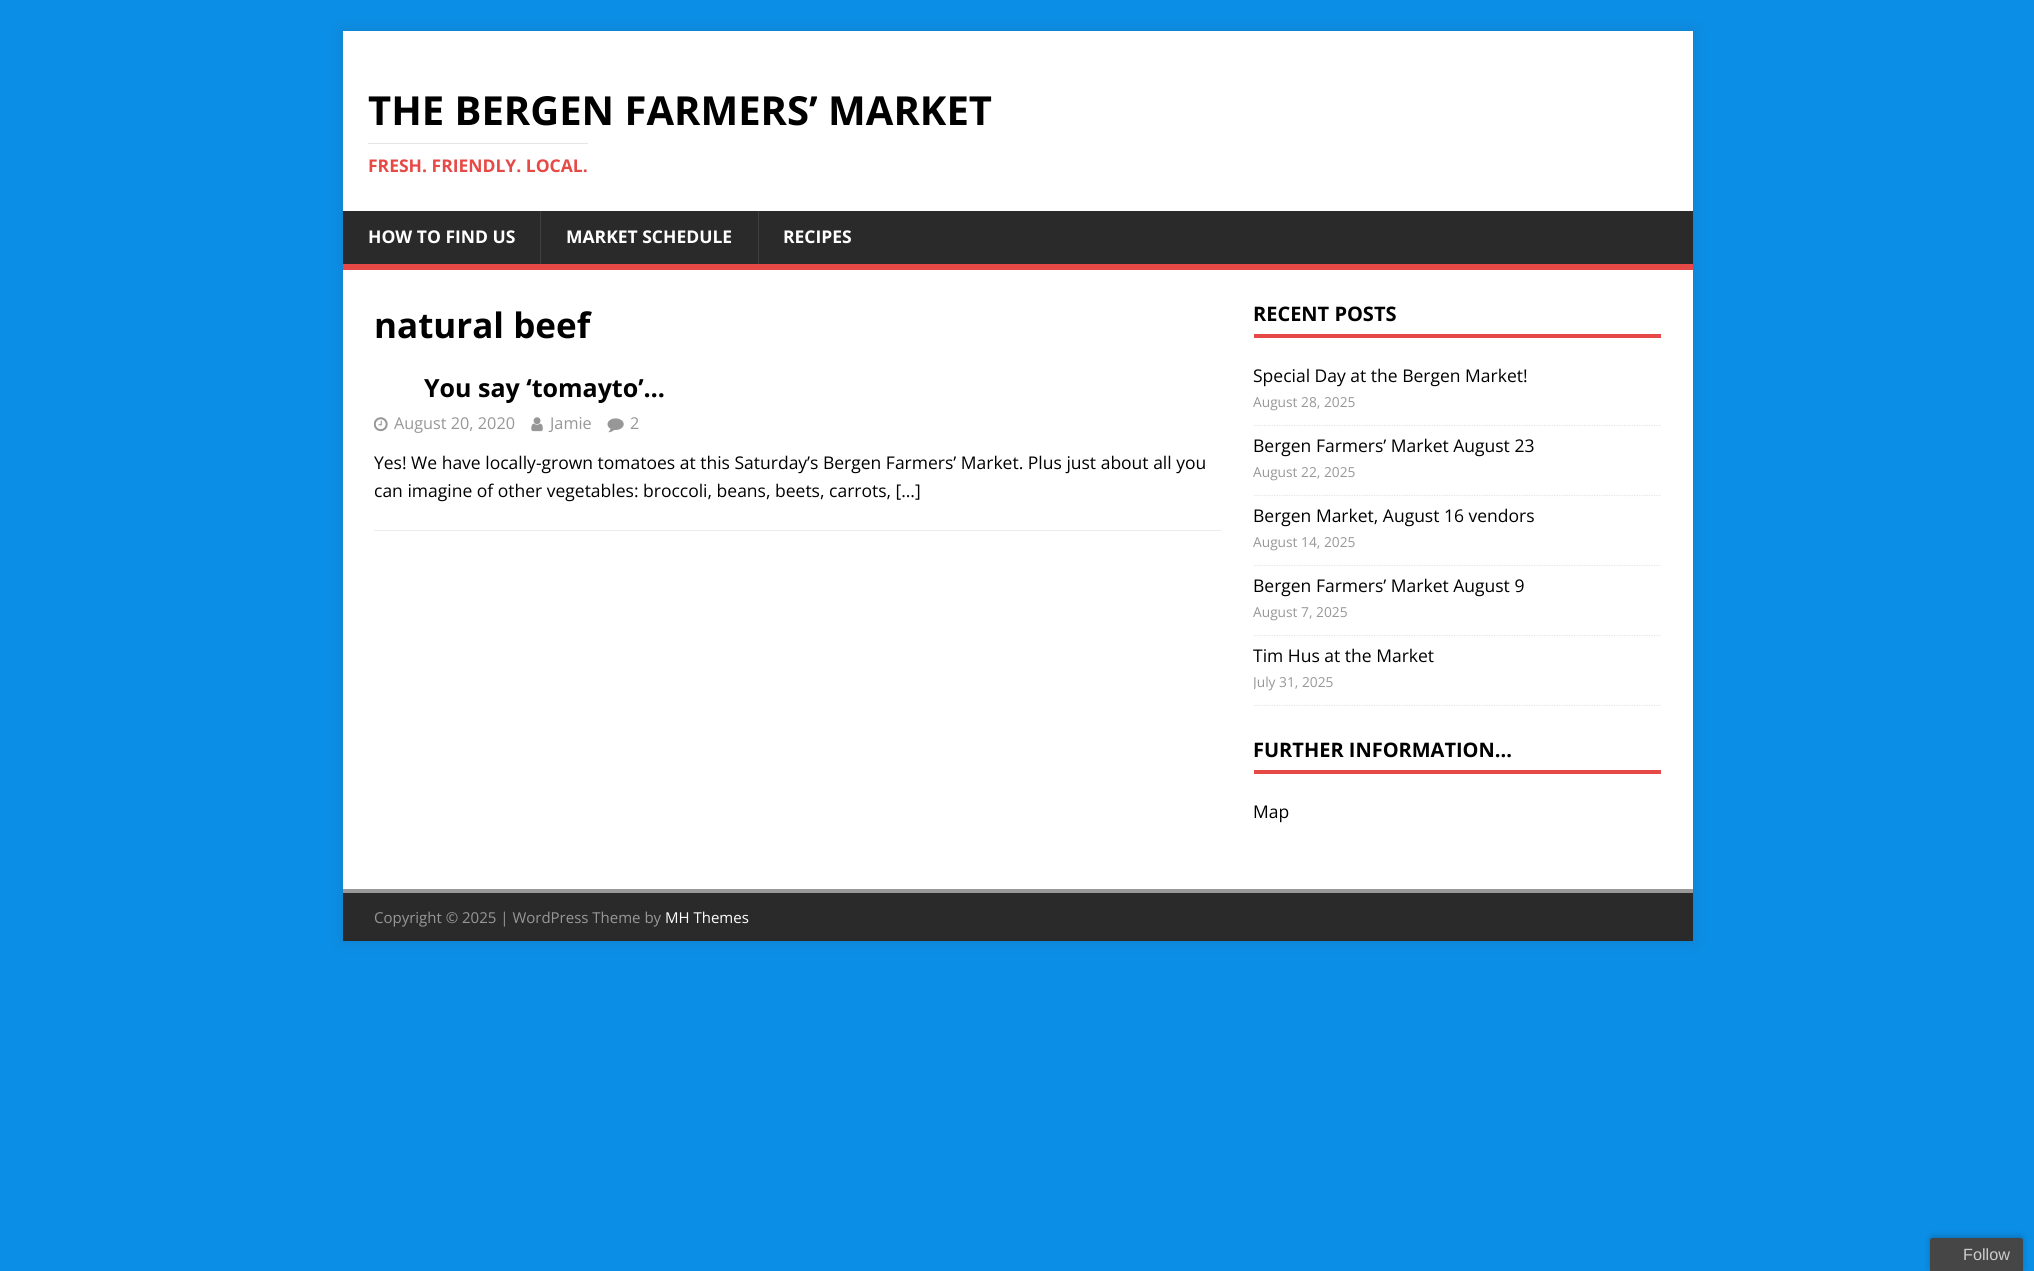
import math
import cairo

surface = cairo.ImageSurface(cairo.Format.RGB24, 2034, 1271)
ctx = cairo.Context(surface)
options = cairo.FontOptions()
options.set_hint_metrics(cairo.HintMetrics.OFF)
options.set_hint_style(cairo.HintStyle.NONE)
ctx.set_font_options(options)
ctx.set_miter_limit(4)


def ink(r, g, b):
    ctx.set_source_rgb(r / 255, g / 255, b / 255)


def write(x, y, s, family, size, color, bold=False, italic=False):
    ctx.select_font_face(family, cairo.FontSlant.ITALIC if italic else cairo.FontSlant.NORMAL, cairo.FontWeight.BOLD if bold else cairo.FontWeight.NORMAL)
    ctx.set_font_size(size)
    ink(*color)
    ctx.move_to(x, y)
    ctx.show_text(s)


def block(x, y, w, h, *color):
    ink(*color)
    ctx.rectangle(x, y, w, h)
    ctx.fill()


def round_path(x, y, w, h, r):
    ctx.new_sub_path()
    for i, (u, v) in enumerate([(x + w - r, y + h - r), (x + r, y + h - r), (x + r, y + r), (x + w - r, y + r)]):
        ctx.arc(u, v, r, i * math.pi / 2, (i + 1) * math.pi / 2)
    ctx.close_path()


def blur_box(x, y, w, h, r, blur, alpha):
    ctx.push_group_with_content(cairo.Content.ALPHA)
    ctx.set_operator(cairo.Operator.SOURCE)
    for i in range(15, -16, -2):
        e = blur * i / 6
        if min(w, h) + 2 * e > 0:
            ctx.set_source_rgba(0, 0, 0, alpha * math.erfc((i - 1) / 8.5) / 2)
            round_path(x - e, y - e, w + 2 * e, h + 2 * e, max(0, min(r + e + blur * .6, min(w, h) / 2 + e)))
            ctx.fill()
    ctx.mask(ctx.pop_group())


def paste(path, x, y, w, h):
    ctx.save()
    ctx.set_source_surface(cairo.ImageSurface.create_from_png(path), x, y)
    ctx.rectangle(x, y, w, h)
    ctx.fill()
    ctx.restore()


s1 = dict(family="Open Sans", size=40, color=(0, 0, 0), bold=True)
s2 = dict(family="Open Sans", size=17.5, color=(230, 73, 70), bold=True)
s3 = dict(family="Open Sans", size=17.5, color=(255, 255, 255), bold=True)
s4 = dict(family="Open Sans", size=35, color=(0, 0, 0), bold=True)
s5 = dict(family="Open Sans", size=25, color=(0, 0, 0), bold=True)
s6 = dict(family="Open Sans", size=16.25, color=(151, 151, 151))
s7 = dict(family="Open Sans", size=17.5, color=(0, 0, 0))
s8 = dict(family="Open Sans", size=20, color=(0, 0, 0), bold=True)
s9 = dict(family="Open Sans", size=13.75, color=(151, 151, 151))
s10 = dict(family="Open Sans", size=15, color=(151, 151, 151))
s11 = dict(family="Open Sans", size=15, color=(255, 255, 255))
s12 = dict(family="Liberation Sans", size=16.25, color=(204, 204, 204))

ink(11, 142, 229)
ctx.paint()
ink(50, 50, 50)
blur_box(343, 31, 1350, 910, 0, 6, 0.17)
block(343, 31, 1350, 180, 255, 255, 255)
write(368, 125, "THE BERGEN FARMERS’ MARKET", **s1)
block(368, 143, 220, 1, 229, 229, 229)
write(368, 172, "FRESH. FRIENDLY. LOCAL.", **s2)
block(343, 211, 1350, 53, 42, 42, 42)
block(343, 264, 1350, 6, 230, 73, 70)
write(368, 243, "HOW TO FIND US", **s3)
block(540, 211, 1, 53, 63, 63, 63)
write(566, 243, "MARKET SCHEDULE", **s3)
block(758, 211, 1, 53, 63, 63, 63)
write(783, 243, "RECIPES", **s3)
block(343, 270, 1350, 619, 255, 255, 255)
write(374, 338, "natural beef", **s4)
block(374, 530, 847, 1, 235, 235, 235)
write(424, 397, "You say ‘tomayto’…", **s5)
paste("pic1.png", 374, 417, 14, 15)
write(394, 429, "August 20, 2020", **s6)
paste("pic2.png", 531, 417, 12, 15)
write(550, 429, "Jamie", **s6)
paste("pic3.png", 607, 418, 17, 15)
write(630, 429, "2", **s6)
write(374, 469, "Yes! We have locally-grown tomatoes at this Saturday’s Bergen Farmers’ Market. Plus just about all you", **s7)
write(374, 497, "can imagine of other vegetables: broccoli, beans, beets, carrots, […]", **s7)
block(1254, 334, 407, 4, 230, 73, 70)
write(1253, 321, "RECENT POSTS", **s8)
ctx.new_path()
ctx.move_to(1254, 425.5)
ctx.line_to(1661, 425.5)
ink(229, 229, 229)
ctx.set_line_width(1.2)
ctx.set_dash([1.25, 1.25])
ctx.stroke()
write(1253, 382, "Special Day at the Bergen Market!", **s7)
write(1253, 407, "August 28, 2025", **s9)
ctx.new_path()
ctx.move_to(1254, 495.5)
ctx.line_to(1661, 495.5)
ink(229, 229, 229)
ctx.stroke()
write(1253, 452, "Bergen Farmers’ Market August 23", **s7)
write(1253, 477, "August 22, 2025", **s9)
ctx.new_path()
ctx.move_to(1254, 565.5)
ctx.line_to(1661, 565.5)
ink(229, 229, 229)
ctx.stroke()
write(1253, 522, "Bergen Market, August 16 vendors", **s7)
write(1253, 547, "August 14, 2025", **s9)
ctx.new_path()
ctx.move_to(1254, 635.5)
ctx.line_to(1661, 635.5)
ink(229, 229, 229)
ctx.stroke()
write(1253, 592, "Bergen Farmers’ Market August 9", **s7)
write(1253, 617, "August 7, 2025", **s9)
ctx.save()
ctx.rectangle(1254, 301, 407, 405)
ctx.clip()
ctx.new_path()
ctx.move_to(1254, 705.5)
ctx.line_to(1661, 705.5)
ink(229, 229, 229)
ctx.stroke()
ctx.restore()
write(1253, 662, "Tim Hus at the Market", **s7)
ctx.save()
ctx.rectangle(1254, 301, 407, 405)
ctx.clip()
write(1253, 687, "July 31, 2025", **s9)
ctx.restore()
block(1254, 770, 407, 4, 230, 73, 70)
write(1253, 757, "FURTHER INFORMATION...", **s8)
write(1253, 818, "Map", **s7)
block(343, 893, 1350, 48, 42, 42, 42)
block(343, 889, 1350, 4, 153, 153, 153)
write(374, 923, "Copyright © 2025 | WordPress Theme by", **s10)
write(665, 923, "MH Themes", **s11)
ink(0, 0, 0)
blur_box(1930, 1236, 93, 35, 2.5, 3, 0.2)
ink(70, 70, 70)
ctx.new_path()
ctx.move_to(1932.5, 1238)
ctx.line_to(2020.5, 1238)
ctx.curve_to(2022, 1238, 2023, 1239, 2023, 1240.5)
ctx.line_to(2023, 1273)
ctx.line_to(1930, 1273)
ctx.line_to(1930, 1240.5)
ctx.curve_to(1930, 1239, 1931, 1238, 1932.5, 1238)
ctx.close_path()
ctx.fill()
write(1963, 1260, "Follow", **s12)
surface.write_to_png("screenshot.png")
